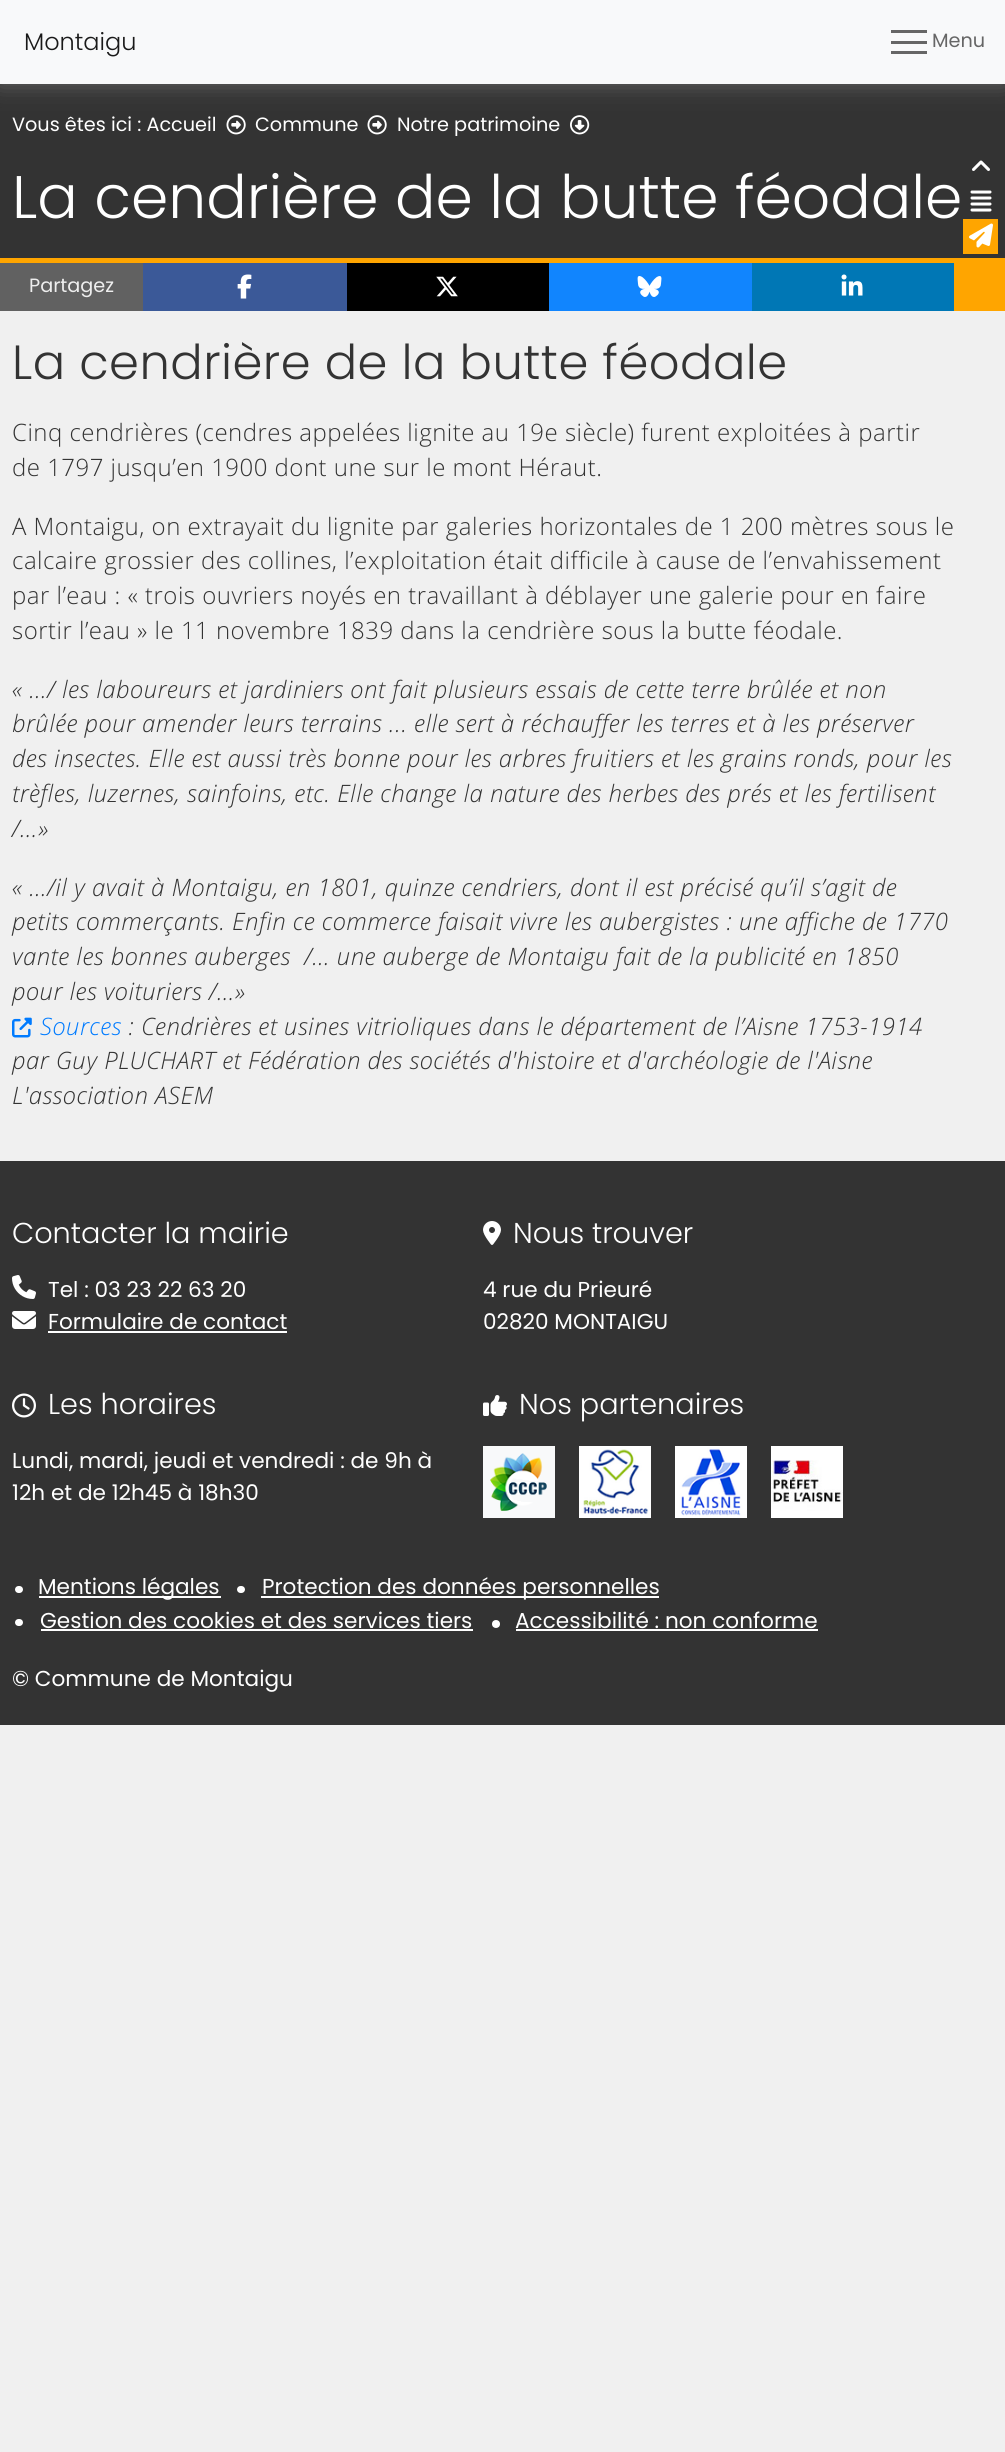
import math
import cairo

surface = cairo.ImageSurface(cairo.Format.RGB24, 1005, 2452)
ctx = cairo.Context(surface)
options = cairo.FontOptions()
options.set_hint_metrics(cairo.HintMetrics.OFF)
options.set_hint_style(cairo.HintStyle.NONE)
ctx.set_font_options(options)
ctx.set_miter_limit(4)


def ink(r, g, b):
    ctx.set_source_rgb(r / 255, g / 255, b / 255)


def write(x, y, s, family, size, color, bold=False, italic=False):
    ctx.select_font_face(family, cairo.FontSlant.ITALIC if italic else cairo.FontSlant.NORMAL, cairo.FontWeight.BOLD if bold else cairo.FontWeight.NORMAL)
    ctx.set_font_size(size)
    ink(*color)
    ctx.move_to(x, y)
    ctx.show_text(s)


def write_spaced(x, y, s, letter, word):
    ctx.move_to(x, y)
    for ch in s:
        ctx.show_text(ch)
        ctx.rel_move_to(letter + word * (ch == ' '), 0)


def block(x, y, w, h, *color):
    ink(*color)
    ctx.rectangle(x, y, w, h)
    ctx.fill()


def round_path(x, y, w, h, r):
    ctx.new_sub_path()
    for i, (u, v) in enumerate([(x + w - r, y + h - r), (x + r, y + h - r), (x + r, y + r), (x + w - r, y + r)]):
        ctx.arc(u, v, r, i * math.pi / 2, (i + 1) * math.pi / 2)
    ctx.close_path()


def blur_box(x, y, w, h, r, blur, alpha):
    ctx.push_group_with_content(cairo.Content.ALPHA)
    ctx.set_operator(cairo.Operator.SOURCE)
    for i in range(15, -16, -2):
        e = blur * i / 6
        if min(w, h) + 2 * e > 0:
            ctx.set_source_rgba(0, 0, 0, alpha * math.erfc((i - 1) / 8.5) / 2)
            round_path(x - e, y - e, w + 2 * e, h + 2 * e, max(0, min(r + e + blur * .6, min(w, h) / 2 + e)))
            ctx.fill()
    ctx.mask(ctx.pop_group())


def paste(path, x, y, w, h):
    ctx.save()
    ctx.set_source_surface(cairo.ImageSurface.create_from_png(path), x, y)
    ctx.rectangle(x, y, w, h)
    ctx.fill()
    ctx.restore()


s1 = dict(family="Poppins Light", size=24, color=(25, 25, 25))
s2 = dict(family="Poppins", size=19.25, color=(102, 102, 102))
s3 = dict(family="Poppins", size=19.25, color=(255, 255, 255))
s4 = dict(family="Poppins Light", size=60, color=(255, 255, 255))
s5 = dict(family="Poppins", size=19.25, color=(238, 238, 238))
s6 = dict(family="Poppins Light", size=28.75, color=(255, 255, 255))
s7 = dict(family="Poppins", size=21.6, color=(255, 255, 255))

ink(240, 240, 240)
ctx.paint()
block(0, 84, 1005, 174, 51, 51, 51)
paste("pic1.png", 226, 115, 20, 20)
paste("pic1.png", 367, 115, 20, 20)
paste("pic2.png", 570, 115, 20, 20)
ink(102, 102, 102)
blur_box(0, 0, 1005, 84, 0, 11, 1)
block(0, 0, 1005, 84, 248, 249, 250)
write(24, 50, "Montaigu", **s1)
block(891, 30, 36, 3, 102, 102, 102)
block(891, 41, 36, 3, 102, 102, 102)
block(891, 51, 36, 3, 102, 102, 102)
write(932, 47, "Menu", **s2)
write(12, 131, "Vous êtes ici : Accueil", **s3)
write(255, 131, "Commune", **s3)
write(397, 131, "Notre patrimoine", **s3)
write(12, 218, "La cendrière de la butte féodale", **s4)
block(0, 258, 954, 5, 255, 165, 0)
block(954, 258, 51, 53, 255, 165, 0)
block(0, 263, 143, 48, 97, 97, 97)
write(29, 292, "Partagez", **s5)
block(143, 263, 204, 48, 59, 89, 152)
paste("pic3.png", 237, 274, 15, 25)
block(347, 263, 202, 48, 0, 0, 0)
paste("pic4.png", 436, 276, 22, 21)
block(549, 263, 203, 48, 17, 133, 254)
paste("pic5.png", 637, 276, 25, 21)
block(752, 263, 202, 48, 0, 119, 181)
paste("pic6.png", 841, 274, 22, 22)
paste("pic7.png", 972, 160, 18, 11)
paste("pic8.png", 970, 190, 22, 22)
block(963, 219, 35, 35, 255, 165, 0)
paste("pic9.png", 969, 223, 24, 25)
ctx.select_font_face("Poppins Light")
ctx.set_font_size(48)
ink(51, 51, 51)
write_spaced(12, 379, "La cendrière de la butte féodale", 0.48, 0)
ctx.select_font_face("Open Sans Light")
ctx.set_font_size(24)
write_spaced(12, 441, "Cinq cendrières (cendres appelées lignite au 19e siècle) furent exploitées à partir", 0.48, 0)
write_spaced(12, 476, "de 1797 jusqu’en 1900 dont une sur le mont Héraut.", 0.48, 0)
write_spaced(12, 535, "A Montaigu, on extrayait du lignite par galeries horizontales de 1 200 mètres sous le", 0.48, 0)
write_spaced(12, 569, "calcaire grossier des collines, l’exploitation était difficile à cause de l’envahissement", 0.48, 0)
write_spaced(12, 604, "par l’eau : « trois ouvriers noyés en travaillant à déblayer une galerie pour en faire", 0.48, 0)
write_spaced(12, 639, "sortir l’eau » le 11 novembre 1839 dans la cendrière sous la butte féodale.", 0.48, 0)
ctx.select_font_face("Open Sans Light", cairo.FontSlant.ITALIC)
write_spaced(12, 698, "« …/ les laboureurs et jardiniers ont fait plusieurs essais de cette terre brûlée et non", 0.48, 0)
write_spaced(12, 732, "brûlée pour amender leurs terrains ... elle sert à réchauffer les terres et à les préserver", 0.48, 0)
write_spaced(12, 767, "des insectes. Elle est aussi très bonne pour les arbres fruitiers et les grains ronds, pour les", 0.48, 0)
write_spaced(12, 802, "trèfles, luzernes, sainfoins, etc. Elle change la nature des herbes des prés et les fertilisent", 0.48, 0)
write_spaced(12, 837, "/…»", 0.48, 0)
write_spaced(12, 896, "« …/il y avait à Montaigu, en 1801, quinze cendriers, dont il est précisé qu’il s’agit de", 0.48, 0)
write_spaced(12, 930, "petits commerçants. Enfin ce commerce faisait vivre les aubergistes : une affiche de 1770", 0.48, 0)
write_spaced(12, 965, "vante les bonnes auberges  /… une auberge de Montaigu fait de la publicité en 1850", 0.48, 0)
write_spaced(12, 1000, "pour les voituriers /…»", 0.48, 0)
paste("pic10.png", 12, 1017, 20, 21)
ink(0, 123, 255)
write_spaced(40, 1035, "Sources", 0.48, 0)
ink(51, 51, 51)
write_spaced(128, 1035, ": Cendrières et usines vitrioliques dans le département de l’Aisne 1753-1914", 0.48, 0)
write_spaced(12, 1069, "par Guy PLUCHART et Fédération des sociétés d'histoire et d'archéologie de l'Aisne", 0.48, 0)
write_spaced(12, 1104, "L'association ASEM", 0.48, 0)
block(0, 1161, 1005, 564, 51, 51, 51)
write(12, 1243, "Contacter la mairie", **s6)
paste("pic11.png", 12, 1275, 24, 24)
write(48, 1297, "Tel : 03 23 22 63 20", **s7)
paste("pic12.png", 12, 1311, 24, 18)
write(48, 1329, "Formulaire de contact", **s7)
block(48, 1331, 239, 2, 255, 255, 255)
paste("pic13.png", 483, 1221, 18, 24)
write(513, 1243, "Nous trouver", **s6)
write(483, 1297, "4 rue du Prieuré", **s7)
write(483, 1329, "02820 MONTAIGU", **s7)
paste("pic14.png", 12, 1393, 24, 25)
write(48, 1414, "Les horaires", **s6)
write(12, 1468, "Lundi, mardi, jeudi et vendredi : de 9h à", **s7)
write(12, 1500, "12h et de 12h45 à 18h30", **s7)
paste("pic15.png", 483, 1395, 24, 21)
write(519, 1414, "Nos partenaires", **s6)
paste("pic16.png", 483, 1446, 72, 72)
paste("pic17.png", 579, 1446, 72, 72)
paste("pic18.png", 675, 1446, 72, 72)
paste("pic19.png", 771, 1446, 72, 72)
round_path(15, 1586, 8, 7, 3.5)
ctx.fill()
block(39, 1596, 182, 2, 255, 255, 255)
write(38, 1594, "Mentions légales", **s7)
round_path(237, 1586, 8, 7, 3.5)
ctx.fill()
block(261, 1596, 398, 2, 255, 255, 255)
write(262, 1594, "Protection des données personnelles", **s7)
round_path(15, 1619, 8, 7, 3.5)
ctx.fill()
write(40, 1628, "Gestion des cookies et des services tiers", **s7)
block(41, 1629, 432, 2, 255, 255, 255)
ctx.new_path()
ctx.arc(496, 1624, 4, 0, 2 * math.pi)
ctx.fill()
write(515, 1628, "Accessibilité : non conforme", **s7)
block(516, 1629, 302, 2, 255, 255, 255)
write(12, 1686, "© Commune de Montaigu", **s7)
surface.write_to_png("screenshot.png")
